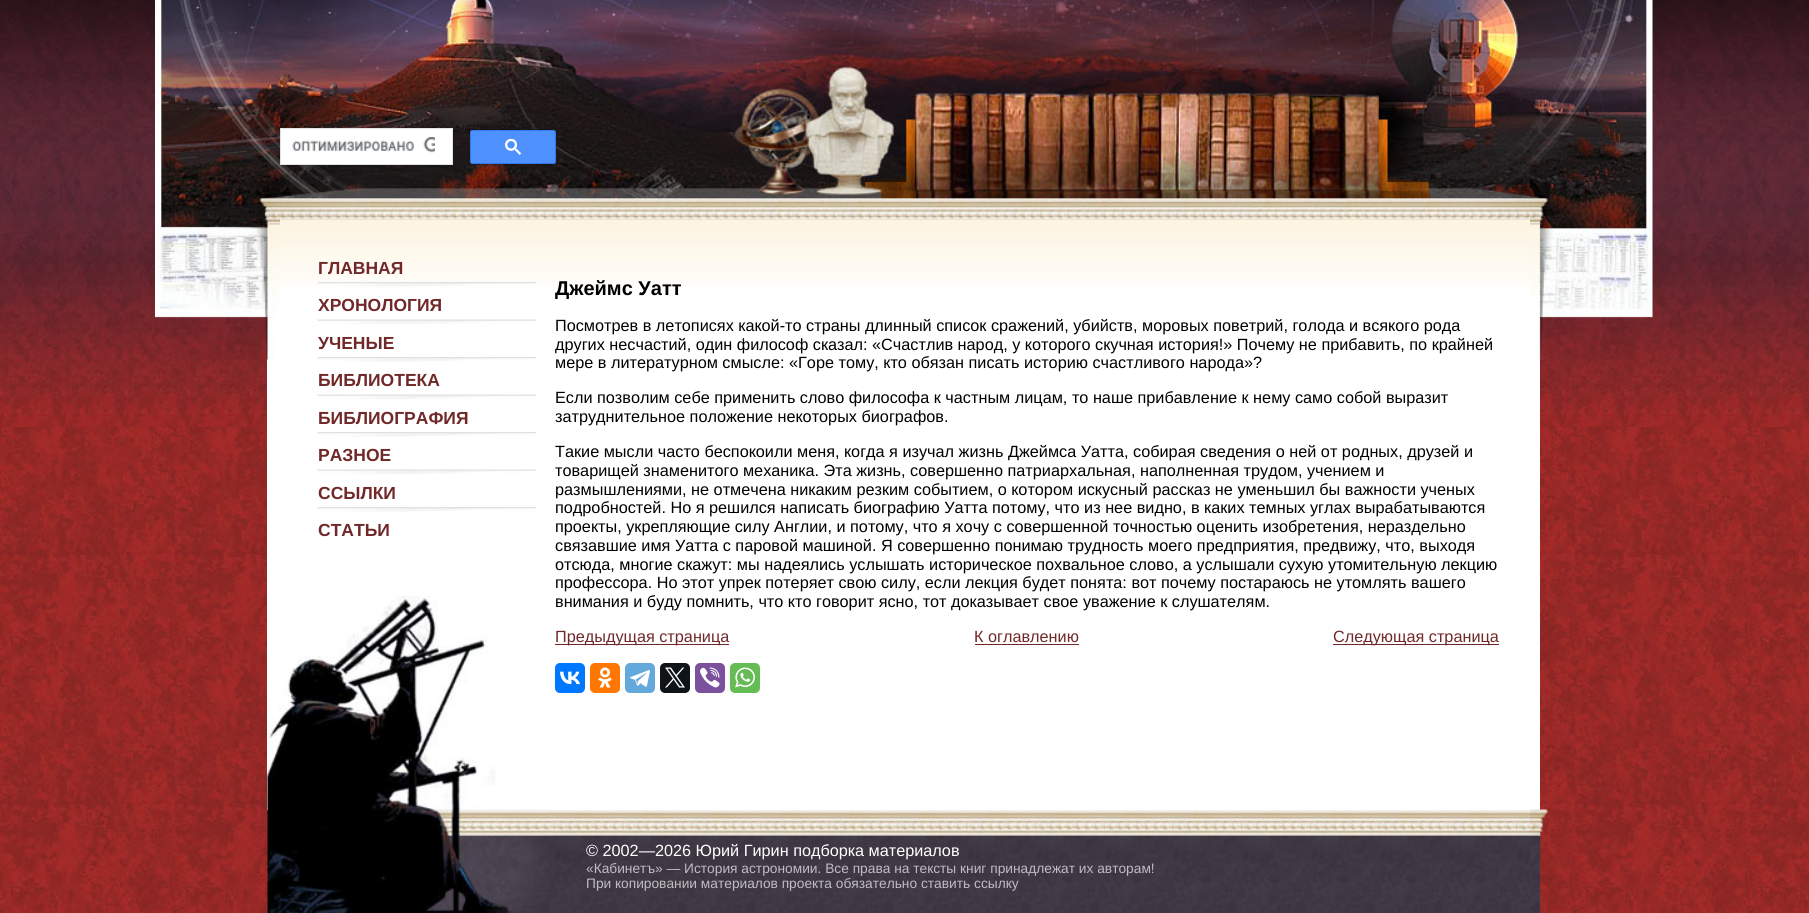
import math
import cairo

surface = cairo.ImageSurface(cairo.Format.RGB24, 1809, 913)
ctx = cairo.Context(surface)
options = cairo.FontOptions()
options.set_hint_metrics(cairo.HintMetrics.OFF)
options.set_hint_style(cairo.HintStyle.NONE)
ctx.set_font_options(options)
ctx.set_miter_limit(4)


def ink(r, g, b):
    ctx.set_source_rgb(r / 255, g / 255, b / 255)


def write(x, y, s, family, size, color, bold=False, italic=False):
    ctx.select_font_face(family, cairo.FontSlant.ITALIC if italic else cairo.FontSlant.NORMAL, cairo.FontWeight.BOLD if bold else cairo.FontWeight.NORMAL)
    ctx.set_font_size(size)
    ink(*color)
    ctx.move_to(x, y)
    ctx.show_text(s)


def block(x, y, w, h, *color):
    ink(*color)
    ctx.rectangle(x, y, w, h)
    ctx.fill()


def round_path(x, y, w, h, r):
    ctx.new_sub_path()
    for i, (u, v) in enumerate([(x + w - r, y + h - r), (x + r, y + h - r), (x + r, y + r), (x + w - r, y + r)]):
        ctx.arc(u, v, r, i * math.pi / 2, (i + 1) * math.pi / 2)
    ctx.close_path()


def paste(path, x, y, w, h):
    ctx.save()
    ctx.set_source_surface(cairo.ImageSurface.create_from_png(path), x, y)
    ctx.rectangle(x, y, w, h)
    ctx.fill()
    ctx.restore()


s1 = dict(family="Liberation Sans", size=17.5, color=(112, 40, 41), bold=True)
s2 = dict(family="Liberation Sans", size=20, color=(0, 0, 0), bold=True)
s3 = dict(family="Liberation Sans", size=16.25, color=(0, 0, 0))
s4 = dict(family="Liberation Sans", size=16.25, color=(112, 40, 41))
s5 = dict(family="Liberation Sans", size=16.25, color=(255, 255, 255))
s6 = dict(family="Liberation Sans", size=13.75, color=(191, 189, 193))

ink(255, 255, 255)
ctx.paint()
paste("pic1.png", 0, 427, 1809, 486)
paste("pic2.png", 0, 0, 1809, 427)
block(267, 359, 13, 451, 255, 255, 255)
paste("pic3.png", 155, 0, 125, 360)
paste("pic4.png", 280, 0, 1250, 220)
ctx.rectangle(280.5, 128.5, 172, 36)
ctx.fill_preserve()
ink(223, 225, 229)
ctx.set_line_width(1)
ctx.stroke()
paste("pic5.png", 292, 137, 143, 16)
ink(77, 144, 254)
round_path(470.5, 130.5, 85, 33, 2)
ctx.fill_preserve()
ink(48, 121, 237)
ctx.stroke()
paste("pic6.png", 505, 139, 16, 16)
block(280, 289, 1250, 521, 255, 255, 255)
paste("pic7.png", 280, 219, 1250, 70)
paste("pic8.png", 317, 282, 220, 5)
write(318, 274, "ГЛАВНАЯ", **s1)
paste("pic9.png", 317, 319, 220, 6)
write(318, 311, "ХРОНОЛОГИЯ", **s1)
paste("pic10.png", 317, 357, 220, 5)
write(318, 349, "УЧЕНЫЕ", **s1)
paste("pic9.png", 317, 394, 220, 6)
write(318, 386, "БИБЛИОТЕКА", **s1)
paste("pic10.png", 317, 432, 220, 5)
write(318, 424, "БИБЛИОГРАФИЯ", **s1)
paste("pic9.png", 317, 469, 220, 6)
write(318, 461, "РАЗНОЕ", **s1)
paste("pic10.png", 317, 507, 220, 5)
write(318, 499, "ССЫЛКИ", **s1)
write(318, 536, "СТАТЬИ", **s1)
write(555, 295, "Джеймс Уатт", **s2)
write(555, 331, "Посмотрев в летописях какой-то страны длинный список сражений, убийств, моровых поветрий, голода и всякого рода", **s3)
write(555, 350, "других несчастий, один философ сказал: «Счастлив народ, у которого скучная история!» Почему не прибавить, по крайней", **s3)
write(555, 368, "мере в литературном смысле: «Горе тому, кто обязан писать историю счастливого народа»?", **s3)
write(555, 403, "Если позволим себе применить слово философа к частным лицам, то наше прибавление к нему само собой выразит", **s3)
write(555, 422, "затруднительное положение некоторых биографов.", **s3)
write(555, 457, "Такие мысли часто беспокоили меня, когда я изучал жизнь Джеймса Уатта, собирая сведения о ней от родных, друзей и", **s3)
write(555, 476, "товарищей знаменитого механика. Эта жизнь, совершенно патриархальная, наполненная трудом, учением и", **s3)
write(555, 495, "размышлениями, не отмечена никаким резким событием, о котором искусный рассказ не уменьшил бы важности ученых", **s3)
write(555, 513, "подробностей. Но я решился написать биографию Уатта потому, что из нее видно, в каких темных углах вырабатываются", **s3)
write(555, 532, "проекты, укрепляющие силу Англии, и потому, что я хочу с совершенной точностью оценить изобретения, нераздельно", **s3)
write(555, 551, "связавшие имя Уатта с паровой машиной. Я совершенно понимаю трудность моего предприятия, предвижу, что, выходя", **s3)
write(555, 570, "отсюда, многие скажут: мы надеялись услышать историческое похвальное слово, а услышали сухую утомительную лекцию", **s3)
write(555, 588, "профессора. Но этот упрек потеряет свою силу, если лекция будет понята: вот почему постараюсь не утомлять вашего", **s3)
write(555, 607, "внимания и буду помнить, что кто говорит ясно, тот доказывает свое уважение к слушателям.", **s3)
block(555, 644, 174, 1, 112, 40, 41)
write(555, 642, "Предыдущая страница", **s4)
write(974, 642, "К оглавлению", **s4)
block(975, 644, 104, 1, 112, 40, 41)
block(1333, 644, 166, 1, 112, 40, 41)
write(1333, 642, "Следующая страница", **s4)
ink(0, 119, 255)
round_path(555, 663, 30, 30, 5)
ctx.fill()
paste("pic11.png", 560, 671, 20, 14)
ink(255, 119, 0)
round_path(590, 663, 30, 30, 5)
ctx.fill()
paste("pic12.png", 598, 667, 14, 21)
ink(100, 169, 220)
round_path(625, 663, 30, 30, 5)
ctx.fill()
paste("pic13.png", 630, 670, 20, 17)
ink(15, 20, 25)
round_path(660, 663, 30, 30, 5)
ctx.fill()
paste("pic14.png", 665, 667, 20, 21)
ink(123, 81, 157)
round_path(695, 663, 30, 30, 5)
ctx.fill()
paste("pic15.png", 700, 667, 20, 21)
ink(101, 188, 84)
round_path(730, 663, 30, 30, 5)
ctx.fill()
paste("pic16.png", 735, 667, 20, 21)
block(1530, 359, 10, 451, 255, 255, 255)
paste("pic17.png", 1530, 0, 123, 360)
paste("pic18.png", 548, 810, 982, 103)
paste("pic19.png", 267, 595, 282, 318)
write(586, 856, "© 2002—2026 Юрий Гирин подборка материалов", **s5)
write(586, 873, "«Кабинетъ» — История астрономии. Все права на тексты книг принадлежат их авторам!", **s6)
write(586, 888, "При копировании материалов проекта обязательно ставить ссылку", **s6)
paste("pic20.png", 1530, 809, 18, 104)
surface.write_to_png("screenshot.png")
